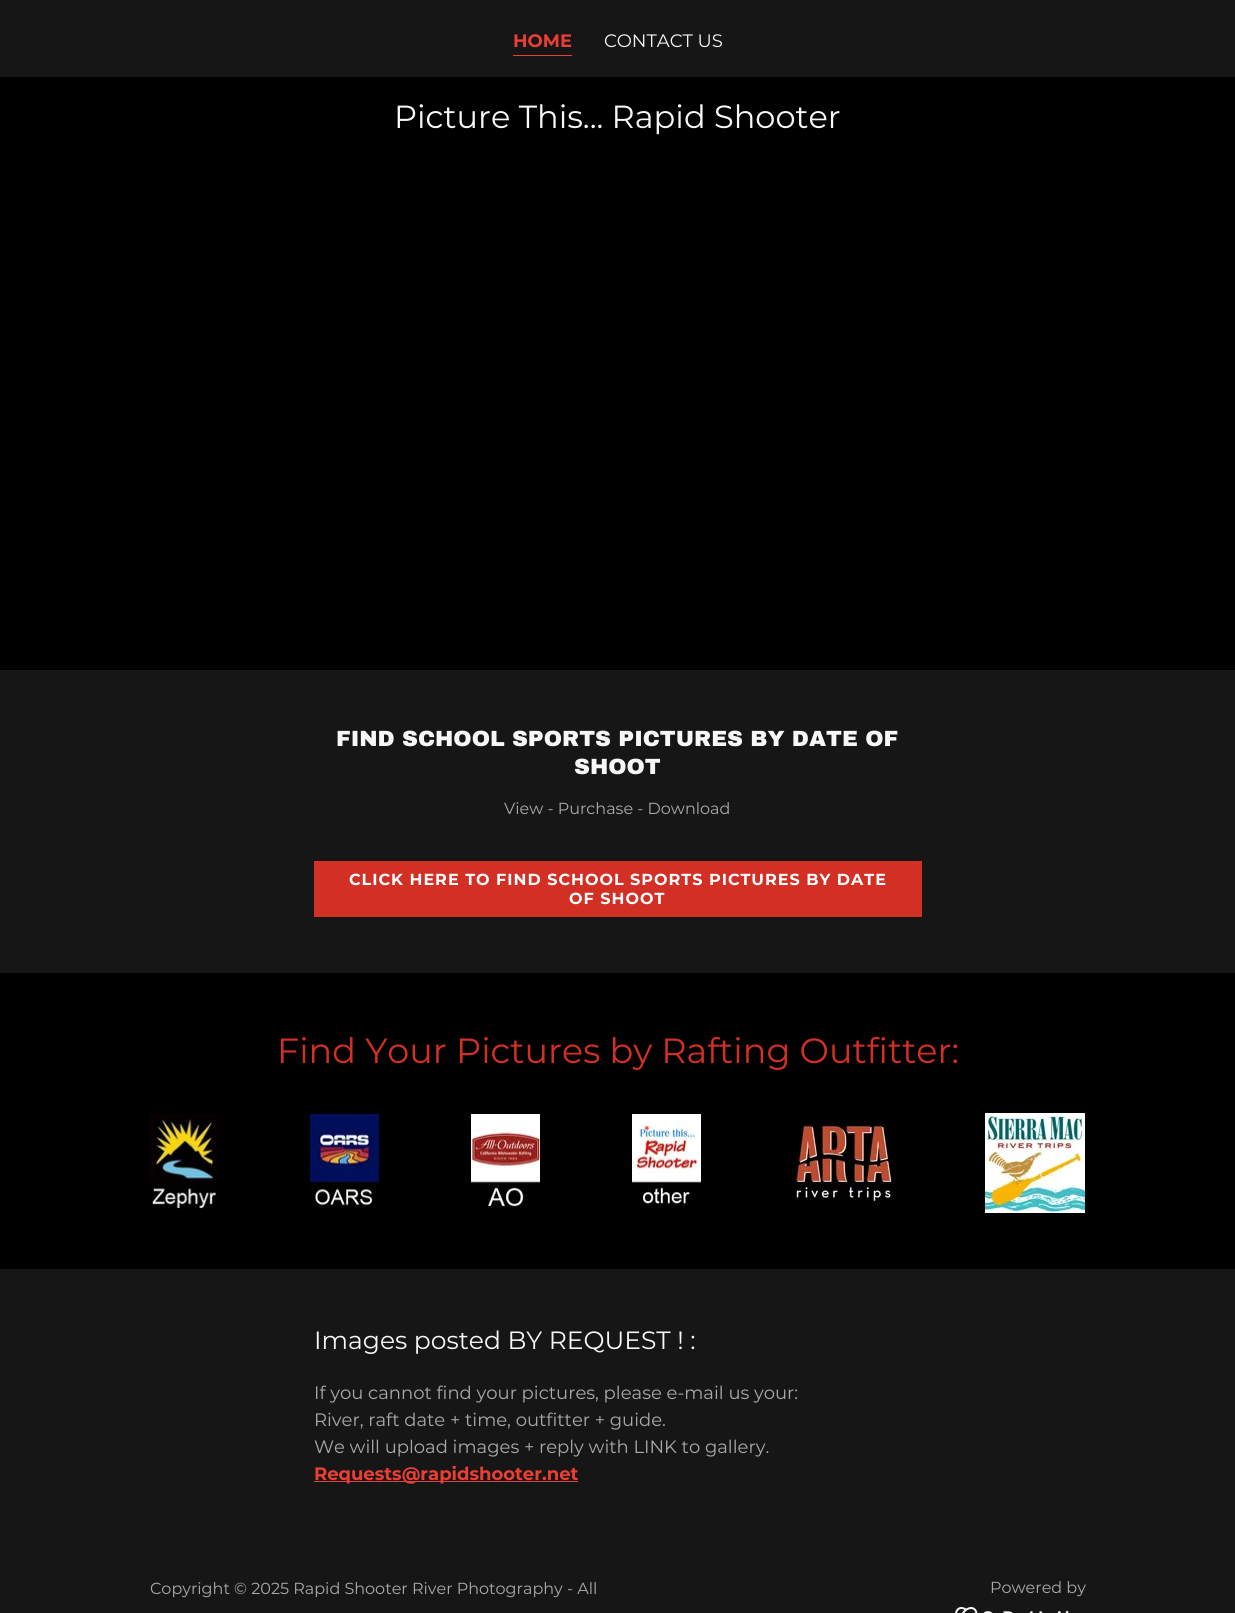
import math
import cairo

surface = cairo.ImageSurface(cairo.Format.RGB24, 1235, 1613)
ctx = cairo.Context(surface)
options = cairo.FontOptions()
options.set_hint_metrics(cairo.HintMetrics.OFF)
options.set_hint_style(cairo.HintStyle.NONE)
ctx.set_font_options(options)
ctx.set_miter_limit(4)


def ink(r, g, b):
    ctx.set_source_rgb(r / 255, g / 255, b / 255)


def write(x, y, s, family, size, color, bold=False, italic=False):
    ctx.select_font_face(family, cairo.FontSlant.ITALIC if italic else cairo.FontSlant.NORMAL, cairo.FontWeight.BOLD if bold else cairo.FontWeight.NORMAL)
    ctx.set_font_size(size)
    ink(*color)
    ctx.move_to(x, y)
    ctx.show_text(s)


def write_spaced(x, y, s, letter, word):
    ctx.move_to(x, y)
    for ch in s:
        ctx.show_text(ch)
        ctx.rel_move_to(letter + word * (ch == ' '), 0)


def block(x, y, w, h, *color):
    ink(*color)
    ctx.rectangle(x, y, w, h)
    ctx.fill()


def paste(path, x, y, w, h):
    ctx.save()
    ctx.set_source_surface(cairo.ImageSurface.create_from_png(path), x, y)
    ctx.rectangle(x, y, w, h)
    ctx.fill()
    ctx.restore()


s1 = dict(family="Montserrat", size=18, color=(235, 62, 52), bold=True)
s2 = dict(family="Montserrat", size=18, color=(247, 247, 247))
s3 = dict(family="Montserrat", size=32, color=(247, 247, 247))
s4 = dict(family="Archivo Black Black", size=22, color=(247, 247, 247))
s5 = dict(family="Montserrat", size=16, color=(169, 169, 169))
s6 = dict(family="Montserrat", size=35, color=(210, 47, 37))
s7 = dict(family="Montserrat", size=25, color=(247, 247, 247))
s8 = dict(family="Montserrat", size=18, color=(169, 169, 169))

ink(22, 22, 22)
ctx.paint()
block(513, 55, 59, 1, 235, 62, 52)
write(513, 47, "HOME", **s1)
write(604, 47, "CONTACT US", **s2)
block(0, 77, 1235, 593, 0, 0, 0)
write(394, 128, "Picture This... Rapid Shooter", **s3)
write(336, 746, "FIND SCHOOL SPORTS PICTURES BY DATE OF", **s4)
write(574, 774, "SHOOT", **s4)
write(504, 814, "View - Purchase - Download", **s5)
block(314, 861, 608, 56, 210, 47, 37)
ctx.select_font_face("Montserrat", cairo.FontSlant.NORMAL, cairo.FontWeight.BOLD)
ink(255, 255, 255)
write_spaced(349, 885, "CLICK HERE TO FIND SCHOOL SPORTS PICTURES BY DATE", 1, 0)
write_spaced(569, 904, "OF SHOOT", 1, 0)
block(0, 973, 1235, 296, 0, 0, 0)
write(277, 1063, "Find Your Pictures by Rafting Outfitter:", **s6)
paste("pic1.png", 150, 1114, 68, 95)
paste("pic2.png", 310, 1114, 69, 92)
paste("pic3.png", 471, 1114, 69, 95)
paste("pic4.png", 632, 1114, 69, 91)
paste("pic5.png", 793, 1121, 100, 80)
paste("pic6.png", 985, 1113, 100, 100)
write(314, 1349, "Images posted BY REQUEST ! :", **s7)
write(314, 1399, "If you cannot find your pictures, please e-mail us your:", **s8)
write(314, 1426, "River, raft date + time, outfitter + guide.", **s8)
write(314, 1453, "We will upload images + reply with LINK to gallery.", **s8)
block(314, 1481, 264, 1, 235, 62, 52)
write(314, 1480, "Requests@rapidshooter.net", **s1)
write(150, 1594, "Copyright © 2025 Rapid Shooter River Photography - All", **s5)
write(990, 1593, "Powered by", **s5)
paste("pic7.png", 955, 1607, 114, 6)
surface.write_to_png("screenshot.png")
